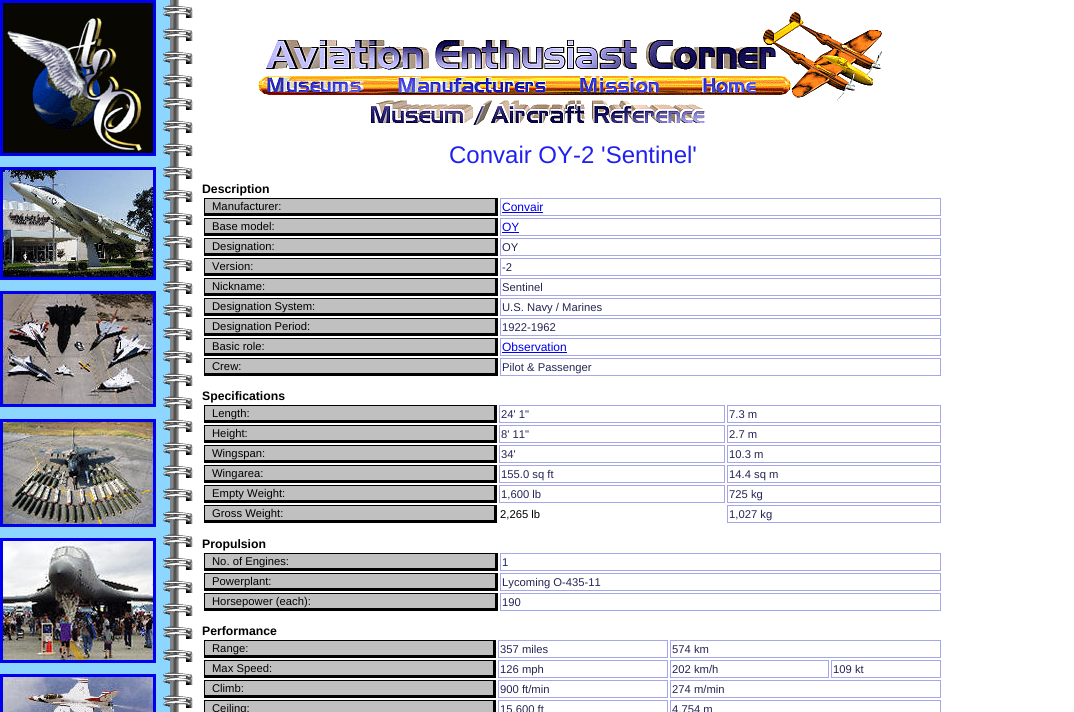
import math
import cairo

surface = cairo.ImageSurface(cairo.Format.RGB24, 1074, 712)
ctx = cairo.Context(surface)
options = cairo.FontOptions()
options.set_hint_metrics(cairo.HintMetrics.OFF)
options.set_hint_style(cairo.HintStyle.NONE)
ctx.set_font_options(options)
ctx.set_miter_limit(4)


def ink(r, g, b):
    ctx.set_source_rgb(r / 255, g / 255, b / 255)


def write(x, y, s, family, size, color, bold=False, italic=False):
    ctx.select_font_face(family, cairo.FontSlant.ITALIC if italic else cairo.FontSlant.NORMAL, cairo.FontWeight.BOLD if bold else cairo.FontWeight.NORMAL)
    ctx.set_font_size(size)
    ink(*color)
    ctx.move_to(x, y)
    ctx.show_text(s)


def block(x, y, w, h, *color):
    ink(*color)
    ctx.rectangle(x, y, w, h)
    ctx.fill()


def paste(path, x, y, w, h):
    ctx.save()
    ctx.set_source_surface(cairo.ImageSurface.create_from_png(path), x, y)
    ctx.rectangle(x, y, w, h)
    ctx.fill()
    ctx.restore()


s1 = dict(family="Liberation Sans", size=24, color=(32, 32, 240))
s2 = dict(family="Liberation Sans", size=12.25, color=(0, 0, 0), bold=True)
s3 = dict(family="Liberation Sans", size=11.25, color=(0, 0, 0))
s4 = dict(family="Liberation Sans", size=12, color=(0, 0, 238))
s5 = dict(family="Liberation Sans", size=11.25, color=(36, 37, 84))

ink(255, 255, 255)
ctx.paint()
block(0, 156, 156, 518, 140, 214, 255)
ctx.rectangle(1.5, 1.5, 153, 153)
ink(0, 0, 238)
ctx.set_line_width(3)
ctx.stroke()
paste("pic1.png", 3, 3, 150, 150)
ctx.rectangle(1.5, 168.5, 153, 110)
ctx.stroke()
paste("pic2.png", 3, 170, 150, 107)
ctx.rectangle(1.5, 292.5, 153, 113)
ctx.stroke()
paste("pic3.png", 3, 294, 150, 110)
ctx.rectangle(1.5, 420.5, 153, 105)
ctx.stroke()
paste("pic4.png", 3, 422, 150, 102)
ctx.rectangle(1.5, 539.5, 153, 122)
ctx.stroke()
paste("pic5.png", 3, 541, 150, 119)
ctx.rectangle(1.5, 675.5, 153, 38)
ctx.stroke()
paste("pic6.png", 3, 677, 150, 35)
paste("pic7.png", 156, 0, 37, 712)
paste("pic8.png", 258, 12, 624, 113)
write(449, 163, "Convair OY-2 'Sentinel'", **s1)
write(202, 193, "Description", **s2)
block(205, 199, 290, 14, 192, 192, 192)
block(204, 198, 294, 1, 0, 0, 0)
block(495, 198, 3, 18, 0, 0, 0)
block(204, 213, 294, 3, 0, 0, 0)
block(204, 198, 1, 18, 0, 0, 0)
write(212, 210, "Manufacturer:", **s3)
ctx.rectangle(500.5, 198.5, 440, 17)
ink(165, 167, 235)
ctx.set_line_width(1)
ctx.stroke()
write(502, 211, "Convair", **s4)
block(502, 212, 41, 1, 0, 0, 238)
block(205, 219, 290, 14, 192, 192, 192)
block(204, 218, 294, 1, 0, 0, 0)
block(495, 218, 3, 18, 0, 0, 0)
block(204, 233, 294, 3, 0, 0, 0)
block(204, 218, 1, 18, 0, 0, 0)
write(212, 230, "Base model:", **s3)
ctx.rectangle(500.5, 218.5, 440, 17)
ink(165, 167, 235)
ctx.stroke()
write(502, 231, "OY", **s4)
block(502, 232, 17, 1, 0, 0, 238)
block(205, 239, 290, 14, 192, 192, 192)
block(204, 238, 294, 1, 0, 0, 0)
block(495, 238, 3, 18, 0, 0, 0)
block(204, 253, 294, 3, 0, 0, 0)
block(204, 238, 1, 18, 0, 0, 0)
write(212, 250, "Designation:", **s3)
ctx.rectangle(500.5, 238.5, 440, 17)
ink(165, 167, 235)
ctx.stroke()
write(502, 251, "OY", **s5)
block(205, 259, 290, 14, 192, 192, 192)
block(204, 258, 294, 1, 0, 0, 0)
block(495, 258, 3, 18, 0, 0, 0)
block(204, 273, 294, 3, 0, 0, 0)
block(204, 258, 1, 18, 0, 0, 0)
write(212, 270, "Version:", **s3)
ctx.rectangle(500.5, 258.5, 440, 17)
ink(165, 167, 235)
ctx.stroke()
write(502, 271, "-2", **s5)
block(205, 279, 290, 14, 192, 192, 192)
block(204, 278, 294, 1, 0, 0, 0)
block(495, 278, 3, 18, 0, 0, 0)
block(204, 293, 294, 3, 0, 0, 0)
block(204, 278, 1, 18, 0, 0, 0)
write(212, 290, "Nickname:", **s3)
ctx.rectangle(500.5, 278.5, 440, 17)
ink(165, 167, 235)
ctx.stroke()
write(502, 291, "Sentinel", **s5)
block(205, 299, 290, 14, 192, 192, 192)
block(204, 298, 294, 1, 0, 0, 0)
block(495, 298, 3, 18, 0, 0, 0)
block(204, 313, 294, 3, 0, 0, 0)
block(204, 298, 1, 18, 0, 0, 0)
write(212, 310, "Designation System:", **s3)
ctx.rectangle(500.5, 298.5, 440, 17)
ink(165, 167, 235)
ctx.stroke()
write(502, 311, "U.S. Navy / Marines", **s5)
block(205, 319, 290, 14, 192, 192, 192)
block(204, 318, 294, 1, 0, 0, 0)
block(495, 318, 3, 18, 0, 0, 0)
block(204, 333, 294, 3, 0, 0, 0)
block(204, 318, 1, 18, 0, 0, 0)
write(212, 330, "Designation Period:", **s3)
ctx.rectangle(500.5, 318.5, 440, 17)
ink(165, 167, 235)
ctx.stroke()
write(502, 331, "1922-1962", **s5)
block(205, 339, 290, 14, 192, 192, 192)
block(204, 338, 294, 1, 0, 0, 0)
block(495, 338, 3, 18, 0, 0, 0)
block(204, 353, 294, 3, 0, 0, 0)
block(204, 338, 1, 18, 0, 0, 0)
write(212, 350, "Basic role:", **s3)
ctx.rectangle(500.5, 338.5, 440, 17)
ink(165, 167, 235)
ctx.stroke()
write(502, 351, "Observation", **s4)
block(502, 352, 65, 1, 0, 0, 238)
block(205, 359, 290, 14, 192, 192, 192)
block(204, 358, 294, 1, 0, 0, 0)
block(495, 358, 3, 18, 0, 0, 0)
block(204, 373, 294, 3, 0, 0, 0)
block(204, 358, 1, 18, 0, 0, 0)
write(212, 370, "Crew:", **s3)
ctx.rectangle(500.5, 358.5, 440, 17)
ink(165, 167, 235)
ctx.stroke()
write(502, 371, "Pilot & Passenger", **s5)
write(202, 400, "Specifications", **s2)
block(205, 406, 289, 14, 192, 192, 192)
block(204, 405, 293, 1, 0, 0, 0)
block(494, 405, 3, 18, 0, 0, 0)
block(204, 420, 293, 3, 0, 0, 0)
block(204, 405, 1, 18, 0, 0, 0)
write(212, 417, "Length:", **s3)
ctx.rectangle(499.5, 405.5, 225, 17)
ink(165, 167, 235)
ctx.stroke()
write(501, 418, "24' 1\"", **s5)
ctx.rectangle(727.5, 405.5, 213, 17)
ink(165, 167, 235)
ctx.stroke()
write(729, 418, "7.3 m", **s5)
block(205, 426, 289, 14, 192, 192, 192)
block(204, 425, 293, 1, 0, 0, 0)
block(494, 425, 3, 18, 0, 0, 0)
block(204, 440, 293, 3, 0, 0, 0)
block(204, 425, 1, 18, 0, 0, 0)
write(212, 437, "Height:", **s3)
ctx.rectangle(499.5, 425.5, 225, 17)
ink(165, 167, 235)
ctx.stroke()
write(501, 438, "8' 11\"", **s5)
ctx.rectangle(727.5, 425.5, 213, 17)
ink(165, 167, 235)
ctx.stroke()
write(729, 438, "2.7 m", **s5)
block(205, 446, 289, 14, 192, 192, 192)
block(204, 445, 293, 1, 0, 0, 0)
block(494, 445, 3, 18, 0, 0, 0)
block(204, 460, 293, 3, 0, 0, 0)
block(204, 445, 1, 18, 0, 0, 0)
write(212, 457, "Wingspan:", **s3)
ctx.rectangle(499.5, 445.5, 225, 17)
ink(165, 167, 235)
ctx.stroke()
write(501, 458, "34'", **s5)
ctx.rectangle(727.5, 445.5, 213, 17)
ink(165, 167, 235)
ctx.stroke()
write(729, 458, "10.3 m", **s5)
block(205, 466, 289, 14, 192, 192, 192)
block(204, 465, 293, 1, 0, 0, 0)
block(494, 465, 3, 18, 0, 0, 0)
block(204, 480, 293, 3, 0, 0, 0)
block(204, 465, 1, 18, 0, 0, 0)
write(212, 477, "Wingarea:", **s3)
ctx.rectangle(499.5, 465.5, 225, 17)
ink(165, 167, 235)
ctx.stroke()
write(501, 478, "155.0 sq ft", **s5)
ctx.rectangle(727.5, 465.5, 213, 17)
ink(165, 167, 235)
ctx.stroke()
write(729, 478, "14.4 sq m", **s5)
block(205, 486, 289, 14, 192, 192, 192)
block(204, 485, 293, 1, 0, 0, 0)
block(494, 485, 3, 18, 0, 0, 0)
block(204, 500, 293, 3, 0, 0, 0)
block(204, 485, 1, 18, 0, 0, 0)
write(212, 497, "Empty Weight:", **s3)
ctx.rectangle(499.5, 485.5, 225, 17)
ink(165, 167, 235)
ctx.stroke()
write(501, 498, "1,600 lb", **s5)
ctx.rectangle(727.5, 485.5, 213, 17)
ink(165, 167, 235)
ctx.stroke()
write(729, 498, "725 kg", **s5)
block(205, 506, 289, 14, 192, 192, 192)
block(204, 505, 293, 1, 0, 0, 0)
block(494, 505, 3, 18, 0, 0, 0)
block(204, 520, 293, 3, 0, 0, 0)
block(204, 505, 1, 18, 0, 0, 0)
write(212, 517, "Gross Weight:", **s3)
write(500, 518, "2,265 lb", **s3)
ctx.rectangle(727.5, 505.5, 213, 17)
ink(165, 167, 235)
ctx.stroke()
write(729, 518, "1,027 kg", **s5)
write(202, 548, "Propulsion", **s2)
block(205, 554, 290, 14, 192, 192, 192)
block(204, 553, 294, 1, 0, 0, 0)
block(495, 553, 3, 18, 0, 0, 0)
block(204, 568, 294, 3, 0, 0, 0)
block(204, 553, 1, 18, 0, 0, 0)
write(212, 565, "No. of Engines:", **s3)
ctx.rectangle(500.5, 553.5, 440, 17)
ink(165, 167, 235)
ctx.stroke()
write(502, 566, "1", **s5)
block(205, 574, 290, 14, 192, 192, 192)
block(204, 573, 294, 1, 0, 0, 0)
block(495, 573, 3, 18, 0, 0, 0)
block(204, 588, 294, 3, 0, 0, 0)
block(204, 573, 1, 18, 0, 0, 0)
write(212, 585, "Powerplant:", **s3)
ctx.rectangle(500.5, 573.5, 440, 17)
ink(165, 167, 235)
ctx.stroke()
write(502, 586, "Lycoming O-435-11", **s5)
block(205, 594, 290, 14, 192, 192, 192)
block(204, 593, 294, 1, 0, 0, 0)
block(495, 593, 3, 18, 0, 0, 0)
block(204, 608, 294, 3, 0, 0, 0)
block(204, 593, 1, 18, 0, 0, 0)
write(212, 605, "Horsepower (each):", **s3)
ctx.rectangle(500.5, 593.5, 440, 17)
ink(165, 167, 235)
ctx.stroke()
write(502, 606, "190", **s5)
write(202, 635, "Performance", **s2)
block(205, 641, 288, 14, 192, 192, 192)
block(204, 640, 292, 1, 0, 0, 0)
block(493, 640, 3, 18, 0, 0, 0)
block(204, 655, 292, 3, 0, 0, 0)
block(204, 640, 1, 18, 0, 0, 0)
write(212, 652, "Range:", **s3)
ctx.rectangle(498.5, 640.5, 169, 17)
ink(165, 167, 235)
ctx.stroke()
write(500, 653, "357 miles", **s5)
ctx.rectangle(670.5, 640.5, 270, 17)
ink(165, 167, 235)
ctx.stroke()
write(672, 653, "574 km", **s5)
block(205, 661, 288, 14, 192, 192, 192)
block(204, 660, 292, 1, 0, 0, 0)
block(493, 660, 3, 18, 0, 0, 0)
block(204, 675, 292, 3, 0, 0, 0)
block(204, 660, 1, 18, 0, 0, 0)
write(212, 672, "Max Speed:", **s3)
ctx.rectangle(498.5, 660.5, 169, 17)
ink(165, 167, 235)
ctx.stroke()
write(500, 673, "126 mph", **s5)
ctx.rectangle(670.5, 660.5, 158, 17)
ink(165, 167, 235)
ctx.stroke()
write(672, 673, "202 km/h", **s5)
ctx.rectangle(831.5, 660.5, 109, 17)
ink(165, 167, 235)
ctx.stroke()
write(833, 673, "109 kt", **s5)
block(205, 681, 288, 14, 192, 192, 192)
block(204, 680, 292, 1, 0, 0, 0)
block(493, 680, 3, 18, 0, 0, 0)
block(204, 695, 292, 3, 0, 0, 0)
block(204, 680, 1, 18, 0, 0, 0)
write(212, 692, "Climb:", **s3)
ctx.rectangle(498.5, 680.5, 169, 17)
ink(165, 167, 235)
ctx.stroke()
write(500, 693, "900 ft/min", **s5)
ctx.rectangle(670.5, 680.5, 270, 17)
ink(165, 167, 235)
ctx.stroke()
write(672, 693, "274 m/min", **s5)
block(205, 701, 288, 11, 192, 192, 192)
block(204, 700, 292, 1, 0, 0, 0)
block(493, 700, 3, 12, 0, 0, 0)
block(204, 700, 1, 12, 0, 0, 0)
write(212, 712, "Ceiling:", **s3)
ctx.rectangle(498.5, 700.5, 169, 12)
ink(165, 167, 235)
ctx.stroke()
write(500, 713, "15,600 ft", **s5)
ctx.rectangle(670.5, 700.5, 270, 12)
ink(165, 167, 235)
ctx.stroke()
write(672, 713, "4,754 m", **s5)
surface.write_to_png("screenshot.png")
